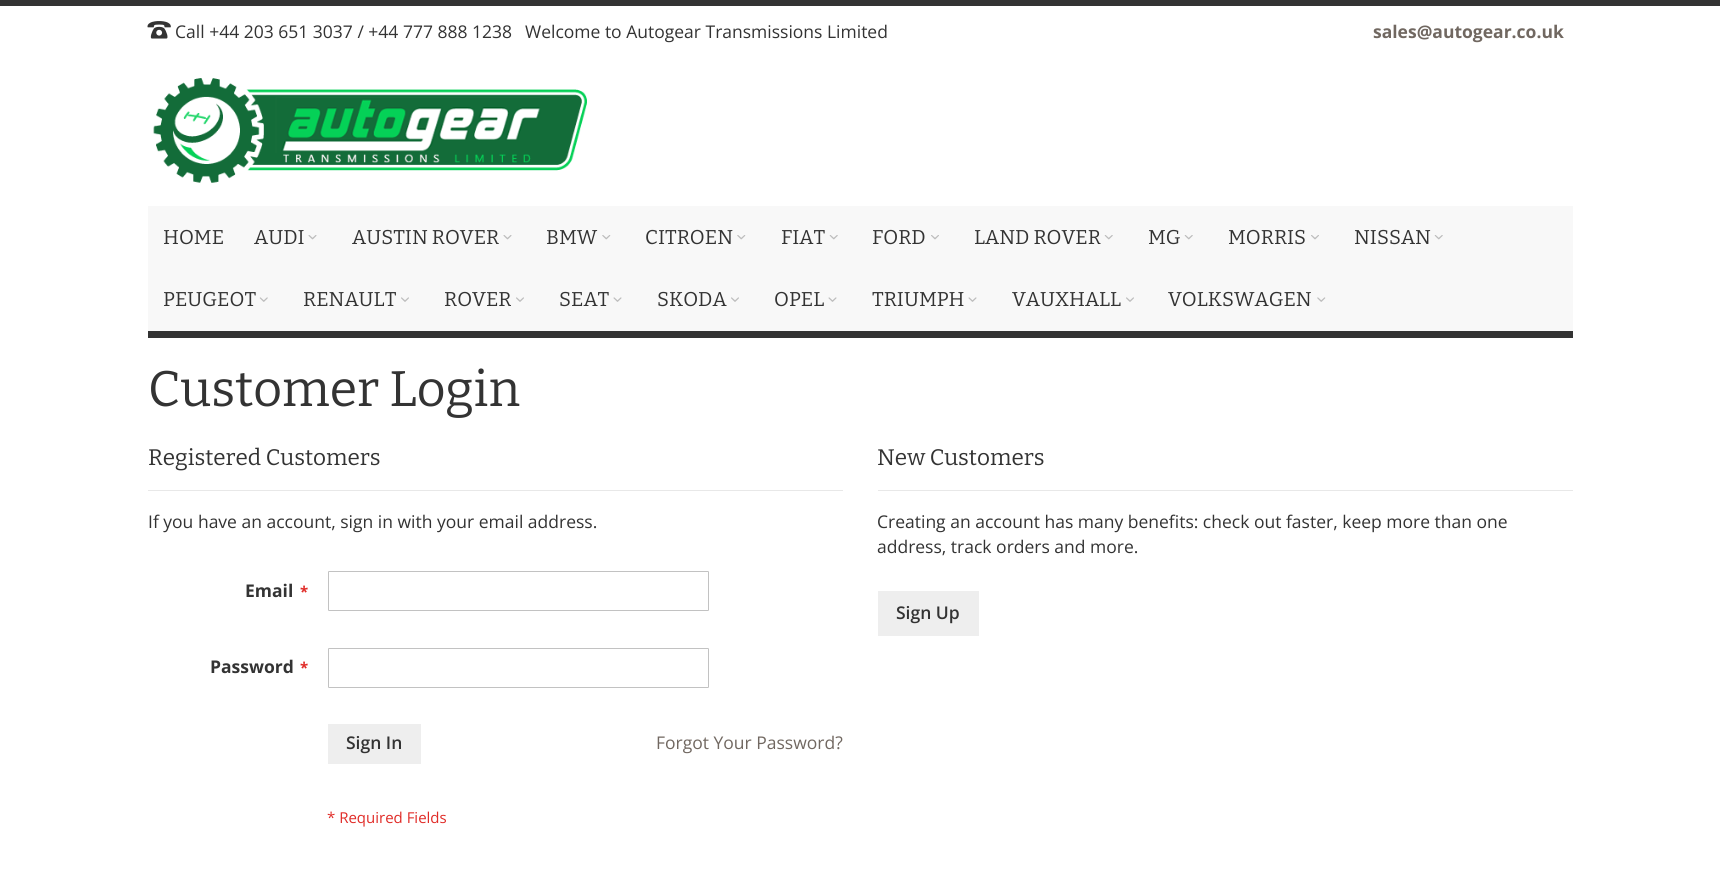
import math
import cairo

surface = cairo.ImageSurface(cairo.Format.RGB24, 1720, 880)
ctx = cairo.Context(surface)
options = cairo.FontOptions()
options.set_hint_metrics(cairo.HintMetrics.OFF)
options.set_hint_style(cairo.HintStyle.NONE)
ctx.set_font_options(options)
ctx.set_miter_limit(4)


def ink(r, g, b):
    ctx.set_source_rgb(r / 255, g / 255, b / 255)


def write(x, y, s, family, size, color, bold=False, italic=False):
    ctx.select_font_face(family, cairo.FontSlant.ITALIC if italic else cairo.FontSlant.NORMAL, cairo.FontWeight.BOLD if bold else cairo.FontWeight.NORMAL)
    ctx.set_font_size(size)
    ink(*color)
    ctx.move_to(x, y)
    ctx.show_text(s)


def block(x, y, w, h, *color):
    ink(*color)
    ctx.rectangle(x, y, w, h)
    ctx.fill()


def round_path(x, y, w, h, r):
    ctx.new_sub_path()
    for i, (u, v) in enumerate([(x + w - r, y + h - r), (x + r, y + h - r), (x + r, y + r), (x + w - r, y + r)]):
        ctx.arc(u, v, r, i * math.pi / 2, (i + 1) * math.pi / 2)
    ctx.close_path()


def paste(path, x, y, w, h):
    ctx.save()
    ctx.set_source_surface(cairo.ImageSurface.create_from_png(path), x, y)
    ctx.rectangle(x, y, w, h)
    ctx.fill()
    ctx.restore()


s1 = dict(family="Open Sans", size=17.5, color=(51, 51, 51))
s2 = dict(family="Open Sans", size=17.5, color=(113, 104, 97), bold=True)
s3 = dict(family="Bitter Thin", size=20, color=(51, 51, 51))
s4 = dict(family="Bitter Thin", size=50, color=(51, 51, 51))
s5 = dict(family="Bitter Thin", size=22.5, color=(51, 51, 51))
s6 = dict(family="Open Sans", size=17.5, color=(51, 51, 51), bold=True)
s7 = dict(family="Open Sans", size=15, color=(224, 43, 39), bold=True)
s8 = dict(family="Open Sans SemiBold", size=17.5, color=(51, 51, 51))
s9 = dict(family="Open Sans", size=17.5, color=(113, 104, 97))
s10 = dict(family="Open Sans", size=15, color=(224, 43, 39))

ink(255, 255, 255)
ctx.paint()
block(0, 0, 1720, 6, 51, 51, 51)
paste("pic1.png", 147, 21, 24, 18)
write(175, 38, "Call +44 203 651 3037 / +44 777 888 1238", **s1)
write(525, 38, "Welcome to Autogear Transmissions Limited", **s1)
write(1373, 38, "sales@autogear.co.uk", **s2)
paste("pic2.png", 153, 78, 434, 105)
block(148, 206, 1425, 125, 248, 248, 248)
write(163, 244, "HOME", **s3)
write(254, 244, "AUDI", **s3)
paste("pic3.png", 308, 235, 9, 5)
write(352, 244, "AUSTIN ROVER", **s3)
paste("pic3.png", 503, 235, 9, 5)
write(546, 244, "BMW", **s3)
paste("pic4.png", 602, 235, 9, 5)
write(645, 244, "CITROEN", **s3)
paste("pic4.png", 737, 235, 9, 5)
write(781, 244, "FIAT", **s3)
paste("pic5.png", 829, 235, 9, 5)
write(872, 244, "FORD", **s3)
paste("pic6.png", 931, 235, 8, 5)
write(974, 244, "LAND ROVER", **s3)
paste("pic5.png", 1104, 235, 9, 5)
write(1148, 244, "MG", **s3)
paste("pic5.png", 1184, 235, 9, 5)
write(1228, 244, "MORRIS", **s3)
paste("pic6.png", 1311, 235, 8, 5)
write(1354, 244, "NISSAN", **s3)
paste("pic5.png", 1434, 235, 9, 5)
write(163, 306, "PEUGEOT", **s3)
paste("pic7.png", 259, 297, 9, 5)
write(303, 306, "RENAULT", **s3)
paste("pic8.png", 401, 297, 8, 5)
write(444, 306, "ROVER", **s3)
paste("pic8.png", 516, 297, 8, 5)
write(559, 306, "SEAT", **s3)
paste("pic9.png", 613, 297, 9, 5)
write(657, 306, "SKODA", **s3)
paste("pic8.png", 731, 297, 8, 5)
write(774, 306, "OPEL", **s3)
paste("pic9.png", 828, 297, 9, 5)
write(872, 306, "TRIUMPH", **s3)
paste("pic9.png", 968, 297, 9, 5)
write(1012, 306, "VAUXHALL", **s3)
paste("pic8.png", 1126, 297, 8, 5)
write(1168, 306, "VOLKSWAGEN", **s3)
paste("pic10.png", 1317, 297, 9, 5)
block(148, 331, 1425, 7, 51, 51, 51)
write(148, 406, "Customer Login", **s4)
block(148, 490, 695, 1, 232, 232, 232)
write(148, 465, "Registered Customers", **s5)
write(148, 528, "If you have an account, sign in with your email address.", **s1)
write(245, 597, "Email", **s6)
write(300, 597, "*", **s7)
round_path(328.5, 571.5, 380, 39, 0.5)
ink(194, 194, 194)
ctx.set_line_width(1)
ctx.stroke()
write(210, 673, "Password", **s6)
write(300, 673, "*", **s7)
round_path(328.5, 648.5, 380, 39, 0.5)
ink(194, 194, 194)
ctx.stroke()
block(328, 724, 93, 40, 238, 238, 238)
write(346, 749, "Sign In", **s8)
write(656, 749, "Forgot Your Password?", **s9)
write(327, 823, "* Required Fields", **s10)
block(878, 490, 695, 1, 232, 232, 232)
write(877, 465, "New Customers", **s5)
write(877, 528, "Creating an account has many benefits: check out faster, keep more than one", **s1)
write(877, 553, "address, track orders and more.", **s1)
block(878, 591, 101, 45, 238, 238, 238)
write(896, 619, "Sign Up", **s8)
surface.write_to_png("screenshot.png")
